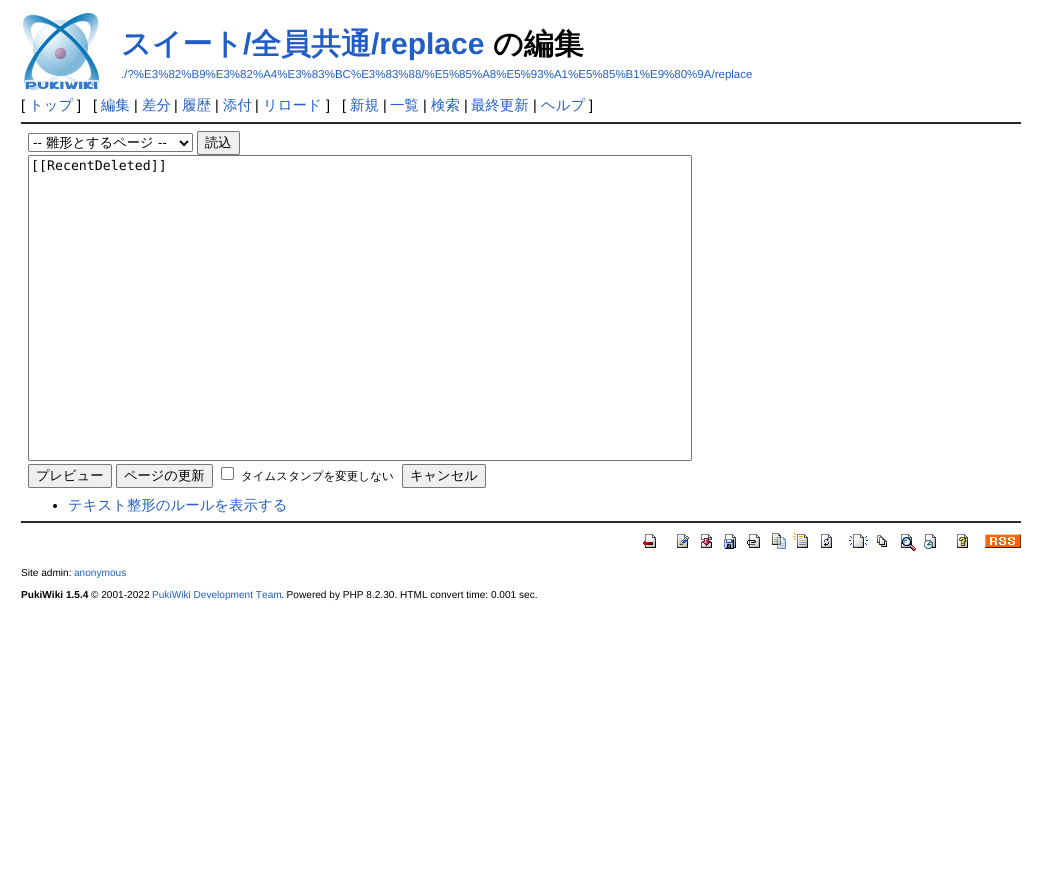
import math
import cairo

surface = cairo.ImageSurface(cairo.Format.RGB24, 1042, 880)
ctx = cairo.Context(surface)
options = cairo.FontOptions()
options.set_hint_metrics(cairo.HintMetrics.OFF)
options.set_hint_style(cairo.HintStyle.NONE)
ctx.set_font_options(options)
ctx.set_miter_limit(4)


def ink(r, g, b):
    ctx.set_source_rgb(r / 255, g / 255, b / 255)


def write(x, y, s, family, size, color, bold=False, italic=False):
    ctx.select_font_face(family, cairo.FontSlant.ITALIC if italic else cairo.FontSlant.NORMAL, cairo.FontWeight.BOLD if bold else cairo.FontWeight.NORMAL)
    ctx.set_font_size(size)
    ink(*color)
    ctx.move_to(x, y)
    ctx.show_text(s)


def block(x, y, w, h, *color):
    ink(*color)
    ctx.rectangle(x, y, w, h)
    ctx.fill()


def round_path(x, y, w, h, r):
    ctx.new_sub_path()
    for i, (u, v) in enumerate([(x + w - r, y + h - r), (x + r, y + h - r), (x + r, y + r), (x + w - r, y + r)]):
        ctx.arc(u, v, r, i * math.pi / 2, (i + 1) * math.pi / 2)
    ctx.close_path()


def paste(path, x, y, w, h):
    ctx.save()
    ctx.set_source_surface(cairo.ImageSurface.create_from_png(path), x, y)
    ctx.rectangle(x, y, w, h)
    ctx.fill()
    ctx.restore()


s1 = dict(family="WenQuanYi Zen Hei", size=30, color=(33, 93, 198), bold=True)
s2 = dict(family="Liberation Sans", size=30, color=(33, 93, 198), bold=True)
s3 = dict(family="WenQuanYi Zen Hei", size=30, color=(0, 0, 0), bold=True)
s4 = dict(family="Liberation Sans", size=11.52, color=(33, 93, 198))
s5 = dict(family="Liberation Sans", size=14.4, color=(0, 0, 0))
s6 = dict(family="WenQuanYi Zen Hei Medium", size=14.4, color=(33, 93, 198))
s7 = dict(family="Liberation Sans", size=13.25, color=(0, 0, 0))
s8 = dict(family="WenQuanYi Zen Hei Medium", size=13.25, color=(0, 0, 0))
s9 = dict(family="DejaVu Sans Mono", size=13.25, color=(0, 0, 0))
s10 = dict(family="WenQuanYi Zen Hei Medium", size=11.52, color=(0, 0, 0))
s11 = dict(family="Liberation Sans", size=10.1, color=(0, 0, 0))
s12 = dict(family="Liberation Sans", size=10.1, color=(33, 93, 198))
s13 = dict(family="Liberation Sans", size=10.1, color=(0, 0, 0), bold=True)

ink(255, 255, 255)
ctx.paint()
paste("pic1.png", 23, 13, 76, 77)
write(121, 54, "スイート", **s1)
write(243, 54, "/", **s2)
write(251, 54, "全員共通", **s1)
write(371, 54, "/replace", **s2)
write(493, 54, "の編集", **s3)
write(121, 78, "./?%E3%82%B9%E3%82%A4%E3%83%BC%E3%83%88/%E5%85%A8%E5%93%A1%E5%85%B1%E9%80%9A/replace", **s4)
write(21, 110, "[", **s5)
write(29, 110, "トップ", **s6)
write(77, 110, "]", **s5)
write(93, 110, "[", **s5)
write(101, 110, "編集", **s6)
write(134, 110, "|", **s5)
write(142, 110, "差分", **s6)
write(174, 110, "|", **s5)
write(182, 110, "履歴", **s6)
write(215, 110, "|", **s5)
write(223, 110, "添付", **s6)
write(255, 110, "|", **s5)
write(263, 110, "リロード", **s6)
write(326, 110, "]", **s5)
write(342, 110, "[", **s5)
write(350, 110, "新規", **s6)
write(383, 110, "|", **s5)
write(390, 110, "一覧", **s6)
write(423, 110, "|", **s5)
write(431, 110, "検索", **s6)
write(464, 110, "|", **s5)
write(471, 110, "最終更新", **s6)
write(533, 110, "|", **s5)
write(541, 110, "ヘルプ", **s6)
write(589, 110, "]", **s5)
block(21, 122, 1000, 1, 51, 51, 51)
block(21, 123, 1000, 1, 34, 34, 34)
round_path(28.5, 133.5, 164, 18, 1.5)
ink(118, 118, 118)
ctx.set_line_width(1)
ctx.stroke()
ctx.new_path()
ctx.move_to(180, 141)
ctx.line_to(184, 145)
ctx.line_to(188, 141)
ink(0, 0, 0)
ctx.set_line_width(2)
ctx.stroke()
write(33, 147, "--", **s7)
write(46, 147, "雛形とするページ", **s8)
write(158, 147, "--", **s7)
ink(239, 239, 239)
round_path(197.5, 131.5, 42, 23, 1.5)
ctx.fill_preserve()
ink(118, 118, 118)
ctx.set_line_width(1)
ctx.stroke()
write(205, 147, "読込", **s8)
round_path(28.5, 155.5, 663, 305, 1.5)
ink(118, 118, 118)
ctx.stroke()
write(31, 170, "[[RecentDeleted]]", **s9)
ink(239, 239, 239)
round_path(28.5, 464.5, 83, 23, 1.5)
ctx.fill_preserve()
ink(118, 118, 118)
ctx.stroke()
write(36, 480, "プレビュー", **s8)
ink(239, 239, 239)
round_path(116.5, 464.5, 96, 23, 1.5)
ctx.fill_preserve()
ink(118, 118, 118)
ctx.stroke()
write(124, 480, "ページの更新", **s8)
round_path(221.5, 467.5, 12, 12, 1.5)
ink(118, 118, 118)
ctx.stroke()
write(241, 480, "タイムスタンプを変更しない", **s10)
ink(239, 239, 239)
round_path(402.5, 464.5, 83, 23, 1.5)
ctx.fill_preserve()
ink(118, 118, 118)
ctx.stroke()
write(410, 480, "キャンセル", **s8)
ctx.new_path()
ctx.arc(55, 506, 2, 0, 2 * math.pi)
ctx.fill()
write(68, 510, "テキスト整形のルールを表示する", **s6)
block(21, 521, 1000, 1, 51, 51, 51)
block(21, 522, 1000, 1, 34, 34, 34)
paste("pic2.png", 643, 534, 13, 14)
paste("pic3.png", 677, 534, 12, 14)
paste("pic4.png", 701, 534, 11, 14)
paste("pic5.png", 724, 534, 12, 15)
paste("pic6.png", 747, 534, 13, 14)
paste("pic7.png", 772, 533, 14, 16)
paste("pic8.png", 793, 533, 15, 15)
paste("pic9.png", 821, 534, 11, 14)
paste("pic10.png", 849, 534, 19, 14)
paste("pic11.png", 877, 535, 10, 12)
paste("pic12.png", 901, 534, 15, 17)
paste("pic13.png", 924, 534, 12, 15)
paste("pic14.png", 957, 534, 11, 14)
paste("pic15.png", 985, 534, 36, 14)
write(21, 576, "Site admin:", **s11)
write(74, 576, "anonymous", **s12)
write(21, 598, "PukiWiki 1.5.4", **s13)
write(91, 598, "© 2001-2022", **s11)
write(152, 598, "PukiWiki Development Team", **s12)
write(281, 598, ". Powered by PHP 8.2.30. HTML convert time: 0.001 sec.", **s11)
surface.write_to_png("screenshot.png")
